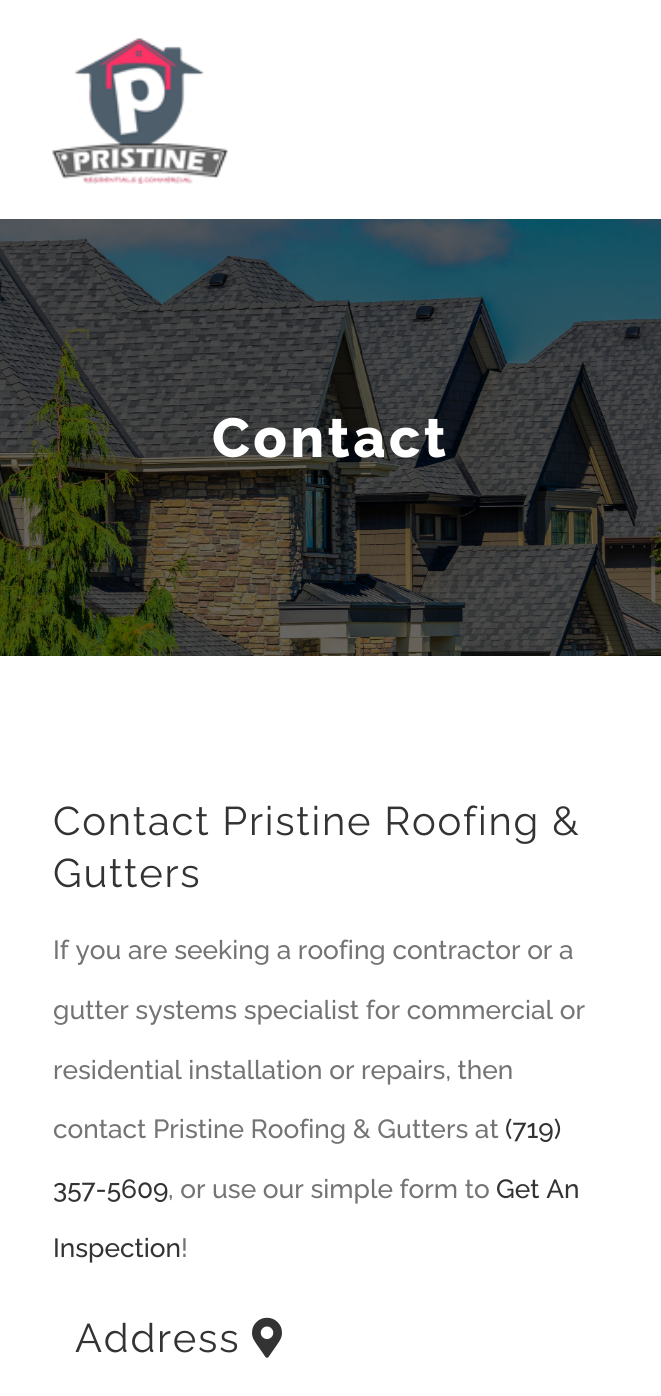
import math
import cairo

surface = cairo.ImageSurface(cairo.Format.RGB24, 661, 1396)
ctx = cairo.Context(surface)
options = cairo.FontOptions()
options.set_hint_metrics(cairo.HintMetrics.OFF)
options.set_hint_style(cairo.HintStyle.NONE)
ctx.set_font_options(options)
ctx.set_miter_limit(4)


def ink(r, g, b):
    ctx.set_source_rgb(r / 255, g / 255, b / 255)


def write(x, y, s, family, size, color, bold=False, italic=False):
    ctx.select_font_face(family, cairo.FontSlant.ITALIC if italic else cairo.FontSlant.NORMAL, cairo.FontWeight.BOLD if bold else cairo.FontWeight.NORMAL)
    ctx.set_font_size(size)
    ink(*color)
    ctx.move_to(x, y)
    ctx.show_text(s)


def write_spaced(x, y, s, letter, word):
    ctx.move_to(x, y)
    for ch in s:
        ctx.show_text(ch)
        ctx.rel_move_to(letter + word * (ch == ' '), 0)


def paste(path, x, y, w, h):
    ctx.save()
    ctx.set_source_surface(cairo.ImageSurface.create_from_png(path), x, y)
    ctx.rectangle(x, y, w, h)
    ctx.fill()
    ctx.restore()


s1 = dict(family="Raleway Medium", size=26.25, color=(116, 116, 116))
s2 = dict(family="Raleway Medium", size=26.25, color=(51, 51, 51))

ink(255, 255, 255)
ctx.paint()
paste("pic1.png", 52, 38, 176, 146)
paste("pic2.png", 0, 219, 661, 437)
ctx.select_font_face("Raleway ExtraBold")
ctx.set_font_size(55)
ink(255, 255, 255)
write_spaced(212, 457, "Contact", 3.5, 0)
ctx.select_font_face("Raleway")
ctx.set_font_size(40)
ink(51, 51, 51)
write_spaced(53, 835, "Contact Pristine Roofing &", 1.75, 0)
write_spaced(53, 887, "Gutters", 1.75, 0)
write(53, 959, "If you are seeking a roofing contractor or a", **s1)
write(53, 1019, "gutter systems specialist for commercial or", **s1)
write(53, 1079, "residential installation or repairs, then", **s1)
write(53, 1138, "contact Pristine Roofing & Gutters at", **s1)
write(505, 1138, "(719)", **s2)
write(53, 1198, "357-5609", **s2)
write(168, 1198, ", or use our simple form to", **s1)
write(496, 1198, "Get An", **s2)
write(53, 1257, "Inspection", **s2)
write(181, 1257, "!", **s1)
ctx.select_font_face("Raleway")
ctx.set_font_size(40)
ink(51, 51, 51)
write_spaced(75, 1352, "Address", 1.75, 0)
paste("pic3.png", 252, 1317, 30, 41)
surface.write_to_png("screenshot.png")
